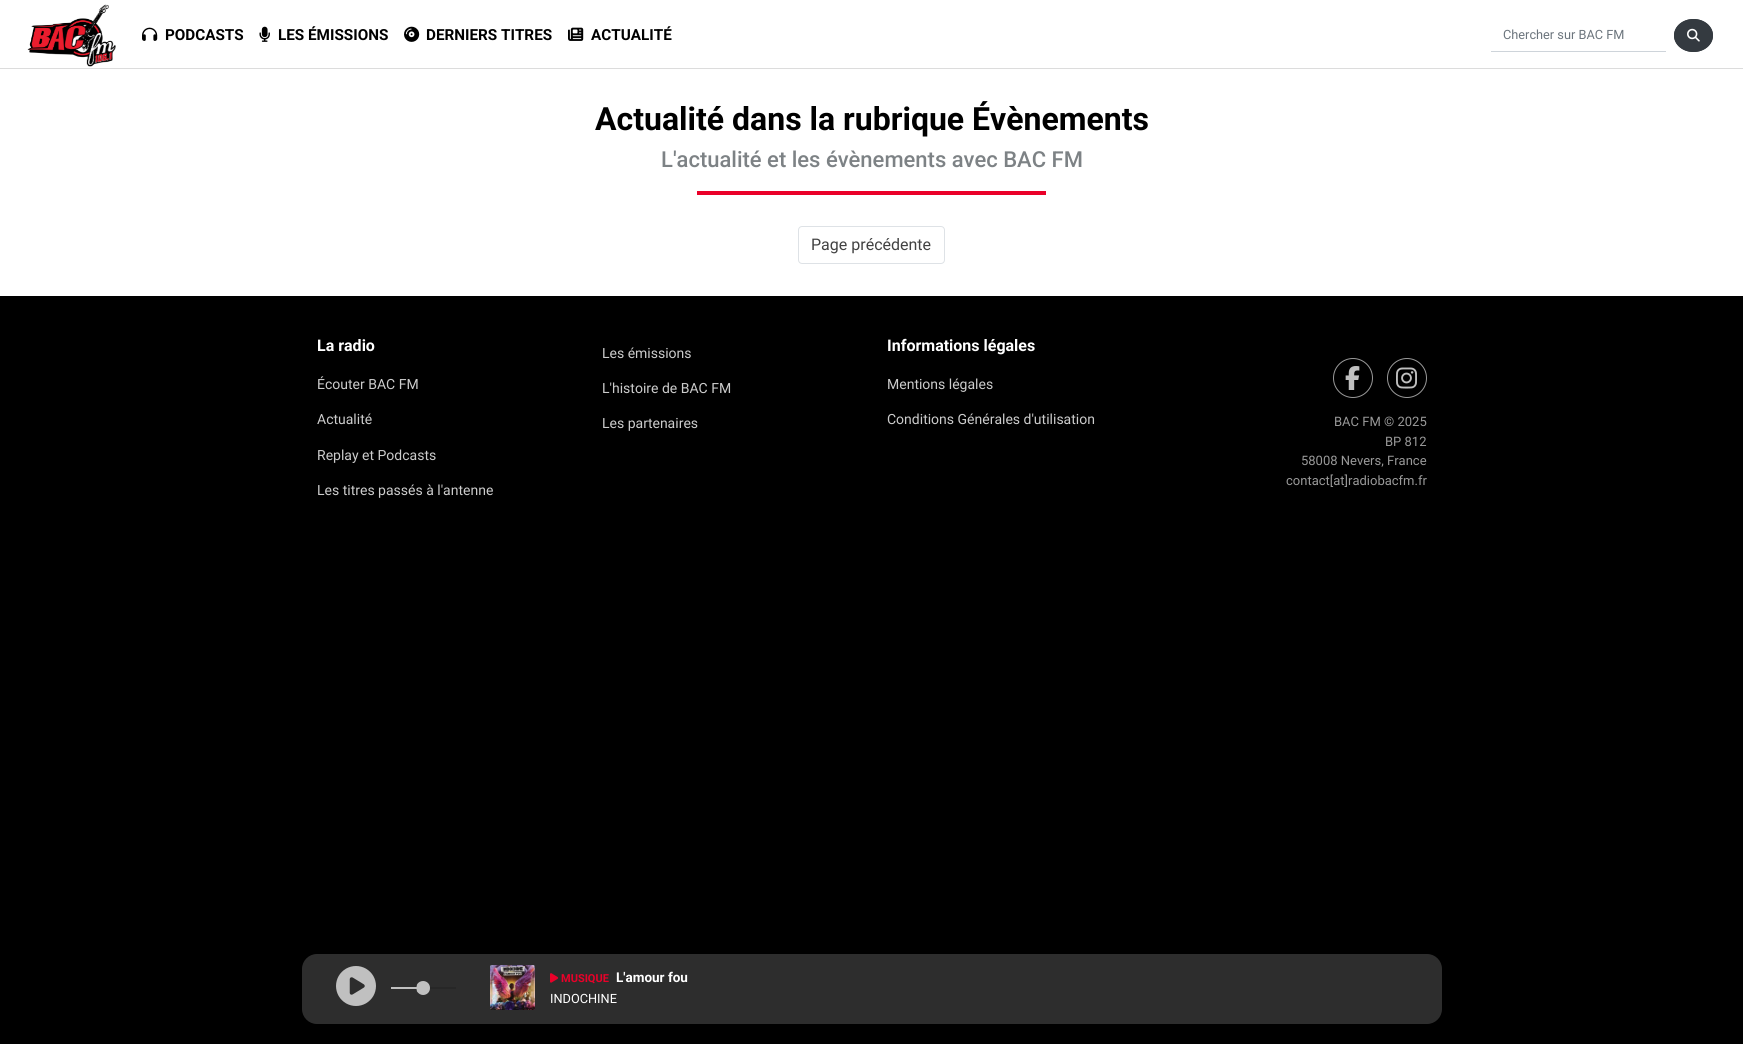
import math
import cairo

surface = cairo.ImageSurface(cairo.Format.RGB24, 1743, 1044)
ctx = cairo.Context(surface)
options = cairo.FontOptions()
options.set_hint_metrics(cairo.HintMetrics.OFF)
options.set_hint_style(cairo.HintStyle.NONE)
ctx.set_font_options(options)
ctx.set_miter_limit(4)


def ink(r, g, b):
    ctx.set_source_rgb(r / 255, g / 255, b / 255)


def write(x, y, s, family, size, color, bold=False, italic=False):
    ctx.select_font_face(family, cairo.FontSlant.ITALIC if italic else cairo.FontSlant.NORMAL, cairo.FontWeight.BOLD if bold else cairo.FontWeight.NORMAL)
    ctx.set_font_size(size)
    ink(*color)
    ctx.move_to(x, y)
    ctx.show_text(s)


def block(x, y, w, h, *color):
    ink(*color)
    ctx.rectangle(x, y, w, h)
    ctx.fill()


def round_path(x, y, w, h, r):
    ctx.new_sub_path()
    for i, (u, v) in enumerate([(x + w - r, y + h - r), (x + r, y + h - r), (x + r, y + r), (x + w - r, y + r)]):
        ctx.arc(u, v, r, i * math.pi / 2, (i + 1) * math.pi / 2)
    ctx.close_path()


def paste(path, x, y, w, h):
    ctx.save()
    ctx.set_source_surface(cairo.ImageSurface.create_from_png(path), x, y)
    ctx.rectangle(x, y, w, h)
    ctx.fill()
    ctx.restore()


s1 = dict(family="Roboto", size=15.25, color=(0, 0, 0), bold=True)
s2 = dict(family="Roboto", size=12.75, color=(108, 117, 125))
s3 = dict(family="Roboto", size=32, color=(0, 0, 0), bold=True)
s4 = dict(family="Roboto Medium", size=22, color=(125, 130, 133))
s5 = dict(family="Roboto", size=16, color=(66, 66, 66))
s6 = dict(family="Roboto", size=16, color=(255, 255, 255), bold=True)
s7 = dict(family="Roboto", size=14, color=(204, 204, 204))
s8 = dict(family="Roboto", size=13, color=(153, 153, 153))
s9 = dict(family="Roboto", size=11, color=(234, 0, 41), bold=True)
s10 = dict(family="Roboto", size=13.5, color=(255, 255, 255), bold=True)
s11 = dict(family="Roboto", size=12.75, color=(255, 255, 255))

ink(0, 0, 0)
ctx.paint()
block(0, 0, 1743, 296, 255, 255, 255)
block(0, 68, 1743, 1, 220, 220, 220)
paste("pic1.png", 27, 4, 89, 63)
paste("pic2.png", 142, 27, 16, 14)
write(165, 40, "PODCASTS", **s1)
paste("pic3.png", 259, 26, 11, 16)
write(278, 40, "LES ÉMISSIONS", **s1)
paste("pic4.png", 404, 26, 16, 16)
write(426, 40, "DERNIERS TITRES", **s1)
paste("pic5.png", 568, 27, 16, 14)
write(591, 40, "ACTUALITÉ", **s1)
block(1491, 51, 175, 1, 206, 212, 218)
write(1503, 39, "Chercher sur BAC FM", **s2)
ink(52, 58, 64)
ctx.new_path()
ctx.move_to(1693.5, 19)
ctx.curve_to(1704.5, 19, 1713, 26.5, 1713, 35.5)
ctx.curve_to(1713, 44.5, 1704.5, 52, 1693.5, 52)
ctx.curve_to(1682.5, 52, 1674, 44.5, 1674, 35.5)
ctx.curve_to(1674, 26.5, 1682.5, 19, 1693.5, 19)
ctx.close_path()
ctx.fill()
ctx.new_path()
ctx.move_to(1693.5, 19.5)
ctx.curve_to(1704, 19.5, 1712.5, 26.5, 1712.5, 35.5)
ctx.curve_to(1712.5, 44.5, 1704, 51.5, 1693.5, 51.5)
ctx.curve_to(1683, 51.5, 1674.5, 44.5, 1674.5, 35.5)
ctx.curve_to(1674.5, 26.5, 1683, 19.5, 1693.5, 19.5)
ctx.close_path()
ctx.set_line_width(1)
ctx.stroke()
paste("pic6.png", 1687, 28, 13, 14)
write(595, 130, "Actualité dans la rubrique Évènements", **s3)
write(661, 167, "L'actualité et les évènements avec BAC FM", **s4)
block(697, 191, 349, 4, 234, 0, 41)
round_path(798.5, 226.5, 146, 37, 3.5)
ink(222, 226, 230)
ctx.stroke()
write(811, 250, "Page précédente", **s5)
write(317, 351, "La radio", **s6)
write(317, 389, "Écouter BAC FM", **s7)
write(317, 424, "Actualité", **s7)
write(317, 460, "Replay et Podcasts", **s7)
write(317, 495, "Les titres passés à l'antenne", **s7)
write(602, 358, "Les émissions", **s7)
write(602, 393, "L'histoire de BAC FM", **s7)
write(602, 428, "Les partenaires", **s7)
write(887, 351, "Informations légales", **s6)
write(887, 389, "Mentions légales", **s7)
write(887, 424, "Conditions Générales d'utilisation", **s7)
ctx.new_path()
ctx.arc(1353, 378, 19.5, 0, 2 * math.pi)
ink(153, 153, 153)
ctx.stroke()
paste("pic7.png", 1345, 366, 15, 24)
ctx.arc(1407, 378, 19.5, 0, 2 * math.pi)
ctx.stroke()
paste("pic8.png", 1396, 367, 21, 22)
write(1334, 426, "BAC FM © 2025", **s8)
write(1385, 446, "BP 812", **s8)
write(1301, 465, "58008 Nevers, France", **s8)
write(1286, 485, "contact[at]radiobacfm.fr", **s8)
ink(45, 45, 45)
round_path(302, 954, 1140, 70, 15)
ctx.fill()
paste("pic9.png", 336, 966, 40, 40)
block(429, 987, 27, 2, 39, 39, 39)
ctx.save()
ctx.rectangle(391, 981, 65, 14)
ctx.clip()
ink(192, 192, 192)
ctx.set_fill_rule(cairo.FillRule.EVEN_ODD)
ctx.new_path()
ctx.move_to(417, 984)
ctx.line_to(417, 984)
ctx.close_path()
ctx.move_to(416, 987)
ctx.line_to(-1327, 987)
ctx.line_to(-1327, 989)
ctx.line_to(416, 989)
ctx.close_path()
ctx.fill()
ctx.restore()
ink(192, 192, 192)
ctx.new_path()
ctx.move_to(423, 981)
ctx.curve_to(420.5, 981, 418, 982.5, 417, 984.5)
ctx.line_to(416.5, 987)
ctx.line_to(416, 987)
ctx.line_to(416, 989)
ctx.line_to(416.5, 989)
ctx.line_to(417, 991.5)
ctx.curve_to(418.5, 993.5, 420.5, 995, 423, 995)
ctx.curve_to(427, 995, 430, 992, 430, 988)
ctx.curve_to(430, 984, 427, 981, 423, 981)
ctx.close_path()
ctx.fill()
paste("pic10.png", 490, 965, 45, 45)
paste("pic11.png", 550, 973, 9, 10)
write(561, 982, "MUSIQUE", **s9)
write(616, 982, "L'amour fou", **s10)
write(550, 1003, "INDOCHINE", **s11)
surface.write_to_png("screenshot.png")
